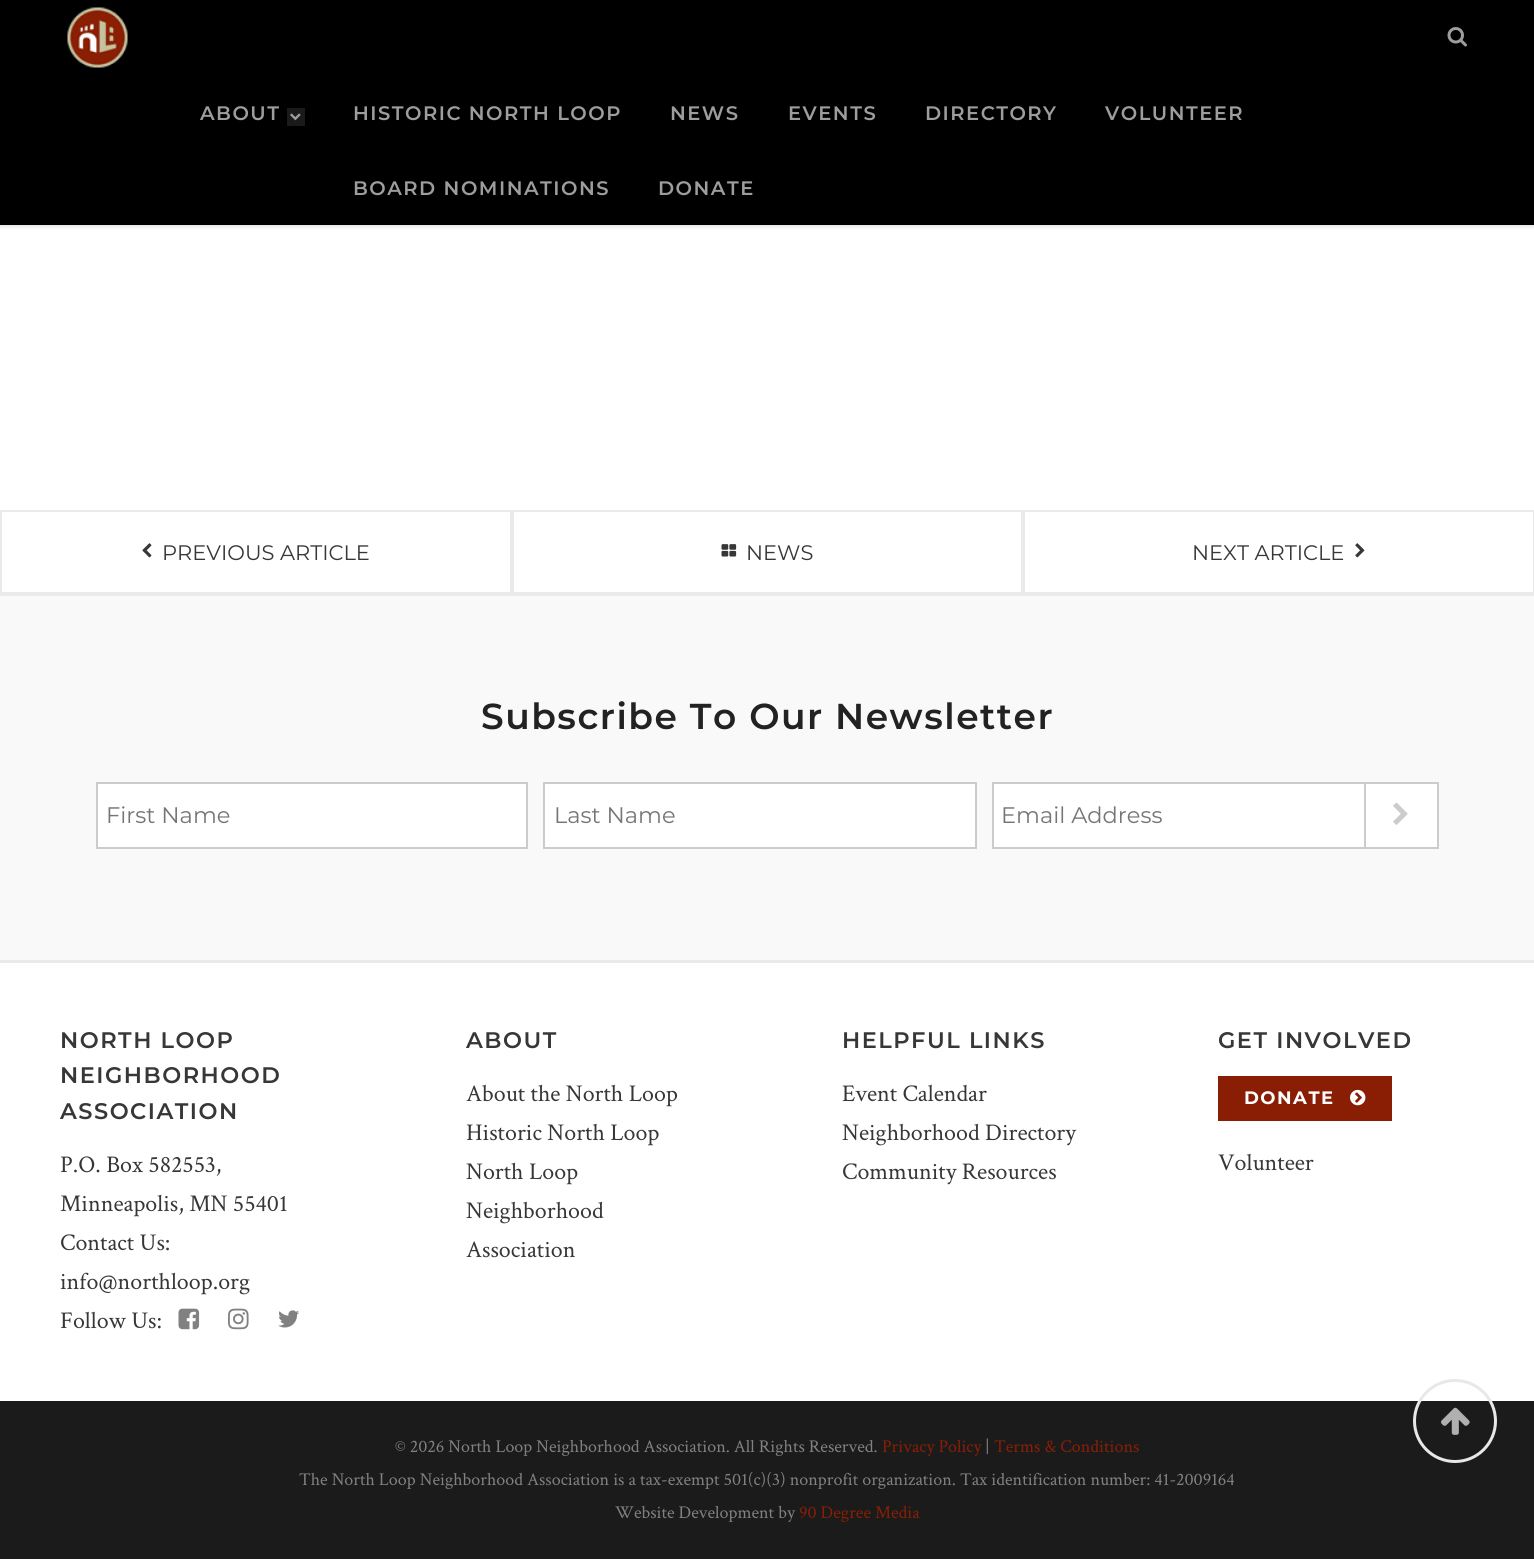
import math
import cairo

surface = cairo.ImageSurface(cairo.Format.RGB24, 1534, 1559)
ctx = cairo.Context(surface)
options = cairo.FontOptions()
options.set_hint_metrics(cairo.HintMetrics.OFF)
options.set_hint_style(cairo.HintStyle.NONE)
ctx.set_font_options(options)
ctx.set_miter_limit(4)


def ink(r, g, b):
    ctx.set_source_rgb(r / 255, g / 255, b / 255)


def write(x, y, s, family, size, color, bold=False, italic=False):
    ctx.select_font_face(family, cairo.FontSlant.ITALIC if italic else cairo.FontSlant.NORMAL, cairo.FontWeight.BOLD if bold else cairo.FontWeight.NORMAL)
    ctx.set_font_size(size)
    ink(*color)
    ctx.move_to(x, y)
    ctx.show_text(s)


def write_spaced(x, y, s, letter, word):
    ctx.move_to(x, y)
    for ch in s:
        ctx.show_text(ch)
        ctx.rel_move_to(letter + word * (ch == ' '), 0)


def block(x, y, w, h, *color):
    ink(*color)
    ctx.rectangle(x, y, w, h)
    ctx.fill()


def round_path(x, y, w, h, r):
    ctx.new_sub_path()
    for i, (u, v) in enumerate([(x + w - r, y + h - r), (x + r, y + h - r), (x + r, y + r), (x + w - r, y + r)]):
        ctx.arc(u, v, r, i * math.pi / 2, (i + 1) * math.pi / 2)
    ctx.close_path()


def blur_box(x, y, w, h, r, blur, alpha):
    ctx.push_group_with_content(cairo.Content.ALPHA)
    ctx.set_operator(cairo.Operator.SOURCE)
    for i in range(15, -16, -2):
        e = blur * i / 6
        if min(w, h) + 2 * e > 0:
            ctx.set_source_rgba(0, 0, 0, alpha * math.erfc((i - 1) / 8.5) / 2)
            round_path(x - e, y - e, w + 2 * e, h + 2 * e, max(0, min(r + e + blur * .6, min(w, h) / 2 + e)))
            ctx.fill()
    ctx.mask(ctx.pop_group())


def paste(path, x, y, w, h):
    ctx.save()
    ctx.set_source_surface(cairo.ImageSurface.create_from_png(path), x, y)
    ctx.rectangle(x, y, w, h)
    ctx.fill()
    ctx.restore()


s1 = dict(family="Montserrat", size=21, color=(55, 55, 55))
s2 = dict(family="Montserrat", size=22.5, color=(117, 117, 117))
s3 = dict(family="Crimson Text", size=24, color=(55, 55, 55))
s4 = dict(family="Crimson Text", size=18, color=(129, 129, 129))
s5 = dict(family="Crimson Text", size=18, color=(138, 30, 4))

ink(255, 255, 255)
ctx.paint()
ink(0, 0, 0)
blur_box(0, 2, 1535, 225, 0, 2, 0.11)
block(0, 0, 1534, 225, 0, 0, 0)
paste("pic1.png", 67, 7, 61, 61)
paste("pic2.png", 1447, 27, 20, 20)
ctx.select_font_face("Montserrat SemiBold")
ctx.set_font_size(19.5)
ink(157, 157, 157)
write_spaced(200, 120, "ABOUT", 1.5, 0)
block(287, 108, 18, 18, 26, 26, 26)
paste("pic3.png", 290, 113, 11, 8)
ink(157, 157, 157)
write_spaced(353, 120, "HISTORIC NORTH LOOP", 1.5, 0)
write_spaced(670, 120, "NEWS", 1.5, 0)
write_spaced(788, 120, "EVENTS", 1.5, 0)
write_spaced(925, 120, "DIRECTORY", 1.5, 0)
write_spaced(1105, 120, "VOLUNTEER", 1.5, 0)
write_spaced(353, 195, "BOARD NOMINATIONS", 1.5, 0)
write_spaced(658, 195, "DONATE", 1.5, 0)
block(0, 594, 1534, 2, 234, 234, 234)
ctx.rectangle(1, 511, 510, 82)
ctx.stroke()
paste("pic4.png", 142, 543, 10, 15)
write(162, 560, "PREVIOUS ARTICLE", **s1)
ctx.rectangle(513, 511, 509, 82)
ink(234, 234, 234)
ctx.stroke()
paste("pic5.png", 721, 544, 16, 13)
write(746, 560, "NEWS", **s1)
ctx.rectangle(1024, 511, 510, 82)
ink(234, 234, 234)
ctx.stroke()
write(1192, 560, "NEXT ARTICLE", **s1)
paste("pic6.png", 1355, 543, 10, 15)
block(0, 596, 1534, 364, 249, 249, 249)
ctx.select_font_face("Montserrat SemiBold")
ctx.set_font_size(36)
ink(34, 34, 34)
write_spaced(481, 729, "Subscribe To Our Newsletter", 1.5, 0)
ink(255, 255, 255)
ctx.rectangle(97, 783, 430, 65)
ctx.fill_preserve()
ink(204, 204, 204)
ctx.stroke()
write(106, 823, "First Name", **s2)
ink(255, 255, 255)
ctx.rectangle(544, 783, 432, 65)
ctx.fill_preserve()
ink(204, 204, 204)
ctx.stroke()
write(554, 823, "Last Name", **s2)
block(994, 784, 370, 63, 255, 255, 255)
ctx.rectangle(993, 783, 430, 65)
ink(204, 204, 204)
ctx.stroke()
write(1001, 823, "Email Address", **s2)
ink(255, 255, 255)
ctx.rectangle(1365, 783, 73, 65)
ctx.fill_preserve()
ink(204, 204, 204)
ctx.stroke()
paste("pic7.png", 1393, 802, 15, 23)
block(0, 1401, 1534, 158, 27, 27, 27)
ctx.arc(1455, 1421, 40.5, 0, 2 * math.pi)
ink(232, 232, 232)
ctx.set_line_width(3)
ctx.stroke()
paste("pic8.png", 1441, 1407, 29, 28)
block(0, 960, 1534, 3, 234, 234, 234)
ctx.select_font_face("Montserrat SemiBold")
ink(55, 55, 55)
write_spaced(60, 1048, "NORTH LOOP", 1.5, 0)
write_spaced(60, 1083, "NEIGHBORHOOD", 1.5, 0)
write_spaced(60, 1119, "ASSOCIATION", 1.5, 0)
write(60, 1172, "P.O. Box 582553,", **s3)
write(60, 1211, "Minneapolis, MN 55401", **s3)
write(60, 1250, "Contact Us:", **s3)
write(60, 1289, "info@northloop.org", **s3)
write(60, 1328, "Follow Us:", **s3)
paste("pic9.png", 178, 1308, 22, 22)
paste("pic10.png", 228, 1308, 21, 22)
paste("pic11.png", 278, 1310, 21, 18)
ctx.select_font_face("Montserrat SemiBold")
ctx.set_font_size(22.5)
write_spaced(466, 1048, "ABOUT", 1.5, 0)
write(466, 1101, "About the North Loop", **s3)
write(466, 1140, "Historic North Loop", **s3)
write(466, 1179, "North Loop", **s3)
write(466, 1218, "Neighborhood", **s3)
write(466, 1257, "Association", **s3)
ctx.select_font_face("Montserrat SemiBold")
ctx.set_font_size(22.5)
write_spaced(842, 1048, "HELPFUL LINKS", 1.5, 0)
write(842, 1101, "Event Calendar", **s3)
write(842, 1140, "Neighborhood Directory", **s3)
write(842, 1179, "Community Resources", **s3)
ctx.select_font_face("Montserrat SemiBold")
ctx.set_font_size(22.5)
write_spaced(1218, 1048, "GET INVOLVED", 1.5, 0)
block(1218, 1076, 174, 45, 138, 30, 4)
ctx.select_font_face("Montserrat", cairo.FontSlant.NORMAL, cairo.FontWeight.BOLD)
ctx.set_font_size(18)
ink(255, 255, 255)
write_spaced(1244, 1104, "DONATE", 1.5, 0)
paste("pic12.png", 1350, 1089, 16, 17)
write(1218, 1170, "Volunteer", **s3)
write(395, 1452, "© 2026 North Loop Neighborhood Association. All Rights Reserved.", **s4)
write(882, 1452, "Privacy Policy", **s5)
write(985, 1452, "|", **s4)
write(994, 1452, "Terms & Conditions", **s5)
write(299, 1485, "The North Loop Neighborhood Association is a tax-exempt 501(c)(3) nonprofit organization. Tax identification number: 41-2009164", **s4)
write(615, 1518, "Website Development by", **s4)
write(799, 1518, "90 Degree Media", **s5)
surface.write_to_png("screenshot.png")
